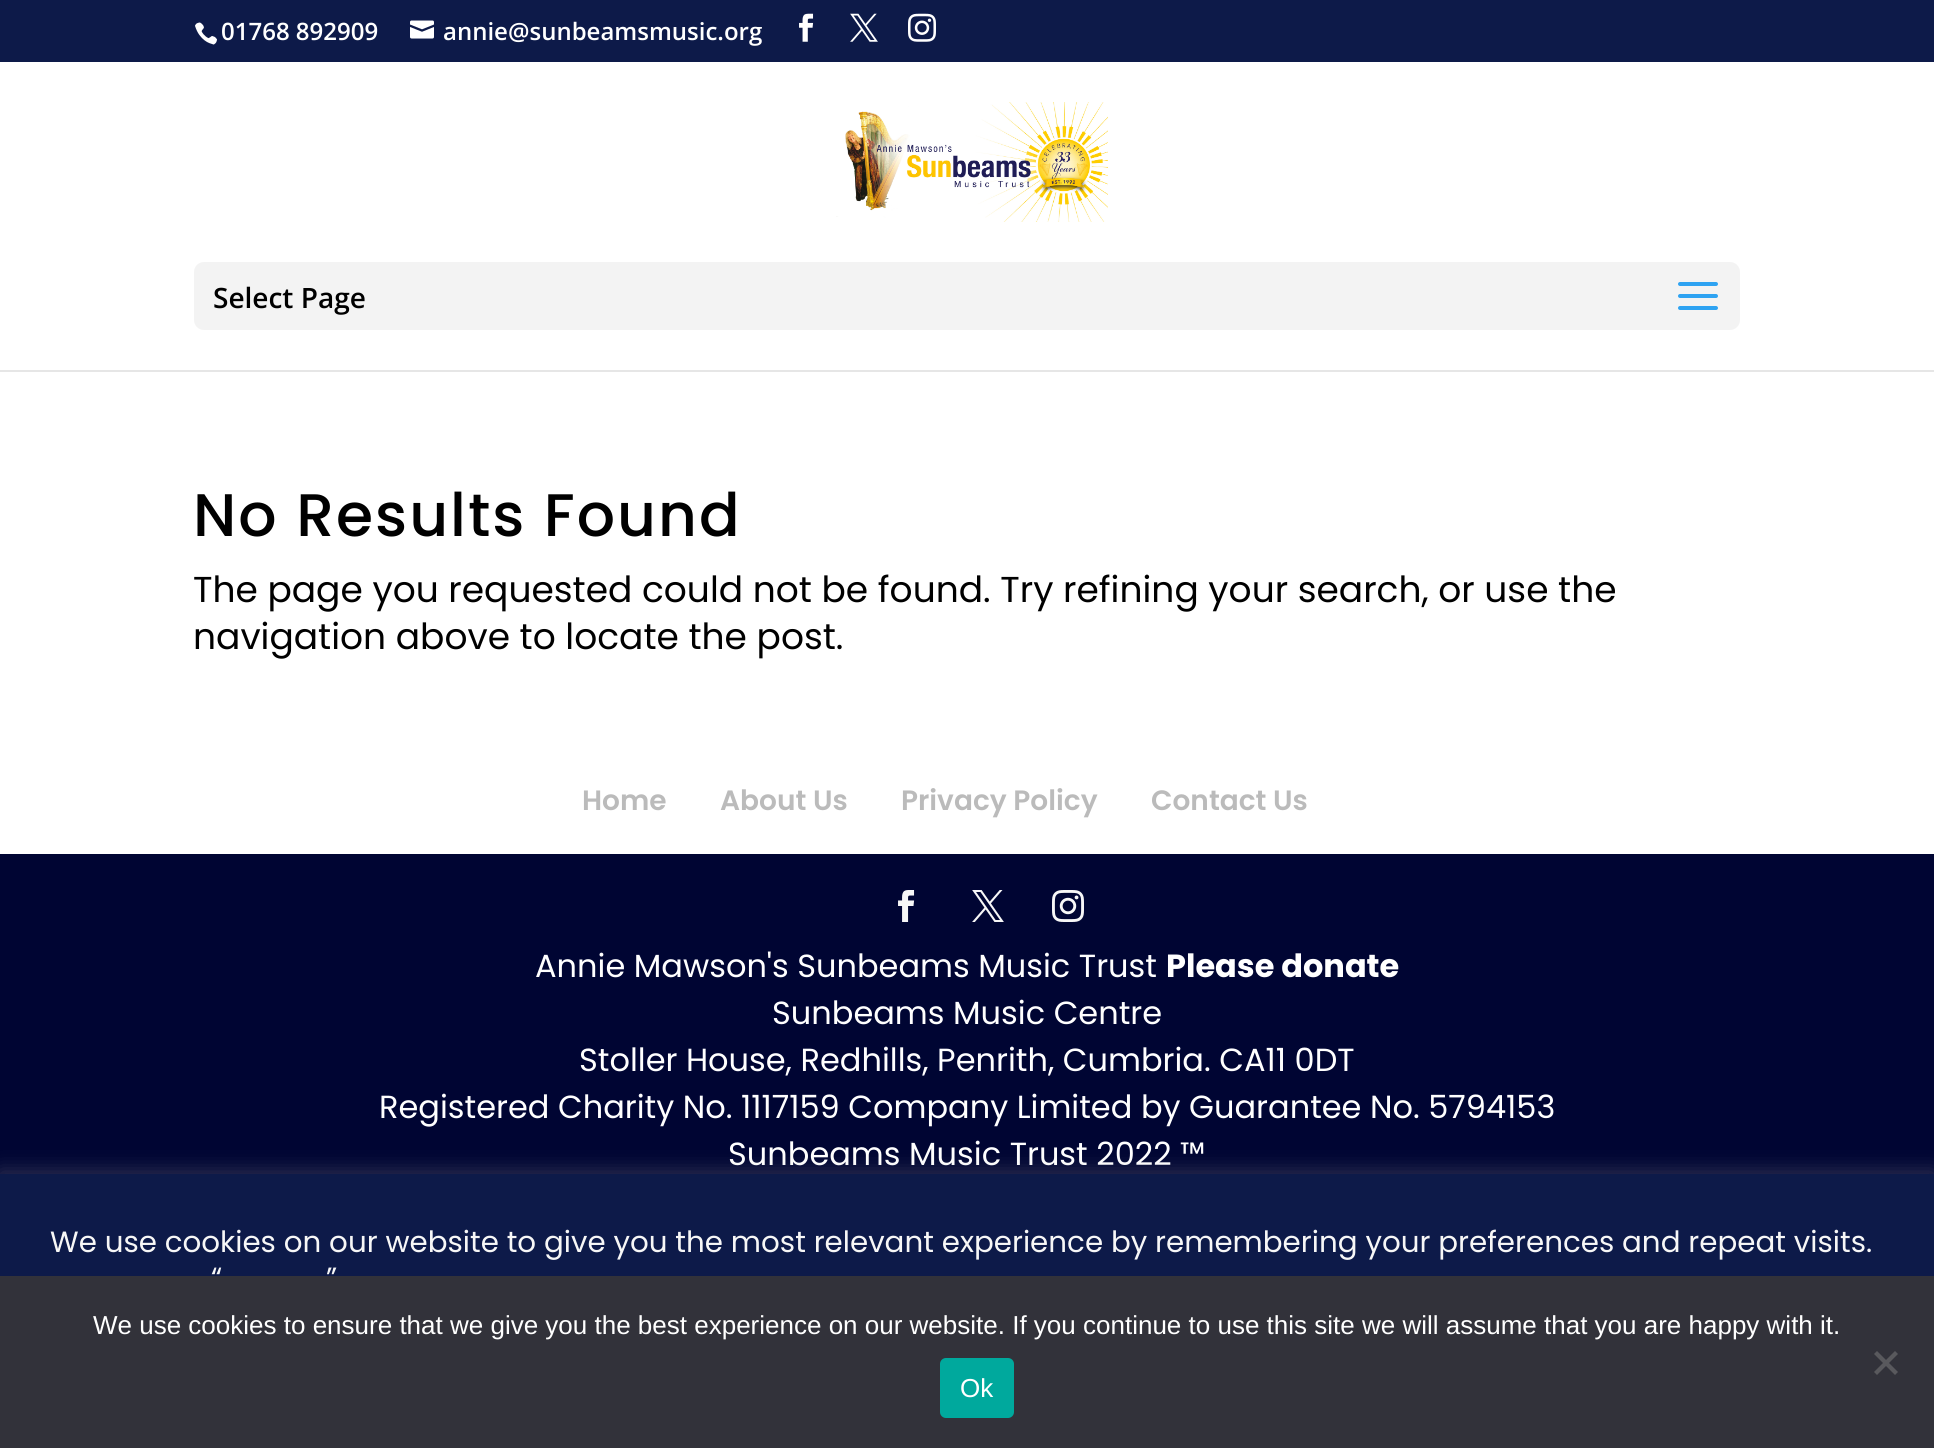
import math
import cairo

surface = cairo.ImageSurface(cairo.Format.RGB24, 1934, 1448)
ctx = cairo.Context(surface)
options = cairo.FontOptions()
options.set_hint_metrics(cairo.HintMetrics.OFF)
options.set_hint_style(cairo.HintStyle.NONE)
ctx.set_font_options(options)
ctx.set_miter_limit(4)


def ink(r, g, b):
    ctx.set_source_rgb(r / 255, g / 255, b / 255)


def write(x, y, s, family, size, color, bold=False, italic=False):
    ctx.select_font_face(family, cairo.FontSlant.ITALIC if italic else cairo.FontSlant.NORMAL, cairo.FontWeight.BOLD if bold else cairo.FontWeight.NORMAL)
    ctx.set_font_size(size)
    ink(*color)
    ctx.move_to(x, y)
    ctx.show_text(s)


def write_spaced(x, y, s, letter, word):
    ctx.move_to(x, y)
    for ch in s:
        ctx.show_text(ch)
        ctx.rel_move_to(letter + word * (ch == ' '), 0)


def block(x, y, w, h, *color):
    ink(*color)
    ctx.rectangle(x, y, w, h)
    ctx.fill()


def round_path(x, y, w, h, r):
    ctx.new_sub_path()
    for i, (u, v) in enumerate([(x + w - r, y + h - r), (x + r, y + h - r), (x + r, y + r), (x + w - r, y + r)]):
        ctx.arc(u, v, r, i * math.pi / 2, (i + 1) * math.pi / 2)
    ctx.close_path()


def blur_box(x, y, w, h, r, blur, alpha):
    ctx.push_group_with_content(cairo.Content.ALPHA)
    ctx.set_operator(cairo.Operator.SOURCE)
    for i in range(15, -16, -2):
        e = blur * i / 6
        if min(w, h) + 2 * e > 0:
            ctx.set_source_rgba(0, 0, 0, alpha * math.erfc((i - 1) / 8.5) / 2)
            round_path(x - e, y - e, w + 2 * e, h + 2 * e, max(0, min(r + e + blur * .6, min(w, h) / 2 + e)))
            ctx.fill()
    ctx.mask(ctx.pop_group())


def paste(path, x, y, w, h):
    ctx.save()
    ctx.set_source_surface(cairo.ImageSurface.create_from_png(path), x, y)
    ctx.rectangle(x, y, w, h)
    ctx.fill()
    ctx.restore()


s1 = dict(family="Open Sans SemiBold", size=24, color=(255, 255, 255))
s2 = dict(family="Open Sans SemiBold", size=28, color=(0, 0, 0))
s3 = dict(family="Poppins", size=36, color=(0, 0, 0))
s4 = dict(family="Poppins SemiBold", size=28, color=(187, 187, 187))
s5 = dict(family="Poppins", size=32, color=(255, 255, 255))
s6 = dict(family="Poppins", size=32, color=(255, 255, 255), bold=True)
s7 = dict(family="Poppins", size=29.33, color=(247, 247, 247))
s8 = dict(family="Liberation Sans", size=26, color=(255, 255, 255))

ink(255, 255, 255)
ctx.paint()
block(0, 0, 1934, 62, 13, 26, 73)
paste("pic1.png", 195, 22, 22, 23)
write(221, 40, "01768 892909", **s1)
paste("pic2.png", 410, 20, 24, 19)
write(443, 40, "annie@sunbeamsmusic.org", **s1)
paste("pic3.png", 799, 13, 15, 29)
paste("pic4.png", 850, 13, 28, 29)
paste("pic5.png", 908, 13, 28, 29)
block(0, 370, 1934, 2, 230, 230, 230)
paste("pic6.png", 836, 102, 272, 120)
ink(243, 243, 243)
round_path(194, 262, 1546, 68, 10)
ctx.fill()
write(213, 308, "Select Page", **s2)
paste("pic7.png", 1678, 282, 40, 28)
ctx.select_font_face("Poppins Medium")
ctx.set_font_size(60)
write_spaced(193, 536, "No Results Found", 2, 0)
write(193, 602, "The page you requested could not be found. Try refining your search, or use the", **s3)
write(193, 649, "navigation above to locate the post.", **s3)
write(582, 810, "Home", **s4)
write(720, 810, "About Us", **s4)
write(901, 810, "Privacy Policy", **s4)
write(1151, 810, "Contact Us", **s4)
block(0, 854, 1934, 320, 0, 5, 51)
paste("pic8.png", 898, 890, 17, 32)
paste("pic9.png", 972, 890, 32, 32)
paste("pic10.png", 1052, 890, 32, 32)
write(535, 977, "Annie Mawson's Sunbeams Music Trust", **s5)
write(1166, 977, "Please donate", **s6)
write(772, 1024, "Sunbeams Music Centre", **s5)
write(579, 1071, "Stoller House, Redhills, Penrith, Cumbria. CA11 0DT", **s5)
write(379, 1118, "Registered Charity No. 1117159 Company Limited by Guarantee No. 5794153", **s5)
write(728, 1165, "Sunbeams Music Trust 2022 ™", **s5)
ink(172, 171, 171)
blur_box(0, 1172, 1934, 274, 0, 10, 0.3)
block(0, 1174, 1934, 102, 13, 26, 73)
write(50, 1252, "We use cookies on our website to give you the most relevant experience by remembering your preferences and repeat visits.", **s7)
write(211, 1288, "“", **s7)
write(326, 1288, "”", **s7)
block(0, 1276, 1934, 172, 50, 50, 58)
write(93, 1334, "We use cookies to ensure that we give you the best experience on our website. If you continue to use this site we will assume that you are happy with it.", **s8)
ink(89, 89, 93)
ctx.new_path()
ctx.move_to(1895, 1351)
ctx.line_to(1898, 1354)
ctx.line_to(1877, 1375)
ctx.line_to(1874, 1372)
ctx.close_path()
ctx.fill()
ctx.new_path()
ctx.move_to(1874, 1354)
ctx.line_to(1877, 1351)
ctx.line_to(1898, 1372)
ctx.line_to(1895, 1375)
ctx.close_path()
ctx.fill()
ink(0, 169, 157)
round_path(940, 1358, 74, 60, 6)
ctx.fill()
write(960, 1397, "Ok", **s8)
surface.write_to_png("screenshot.png")
